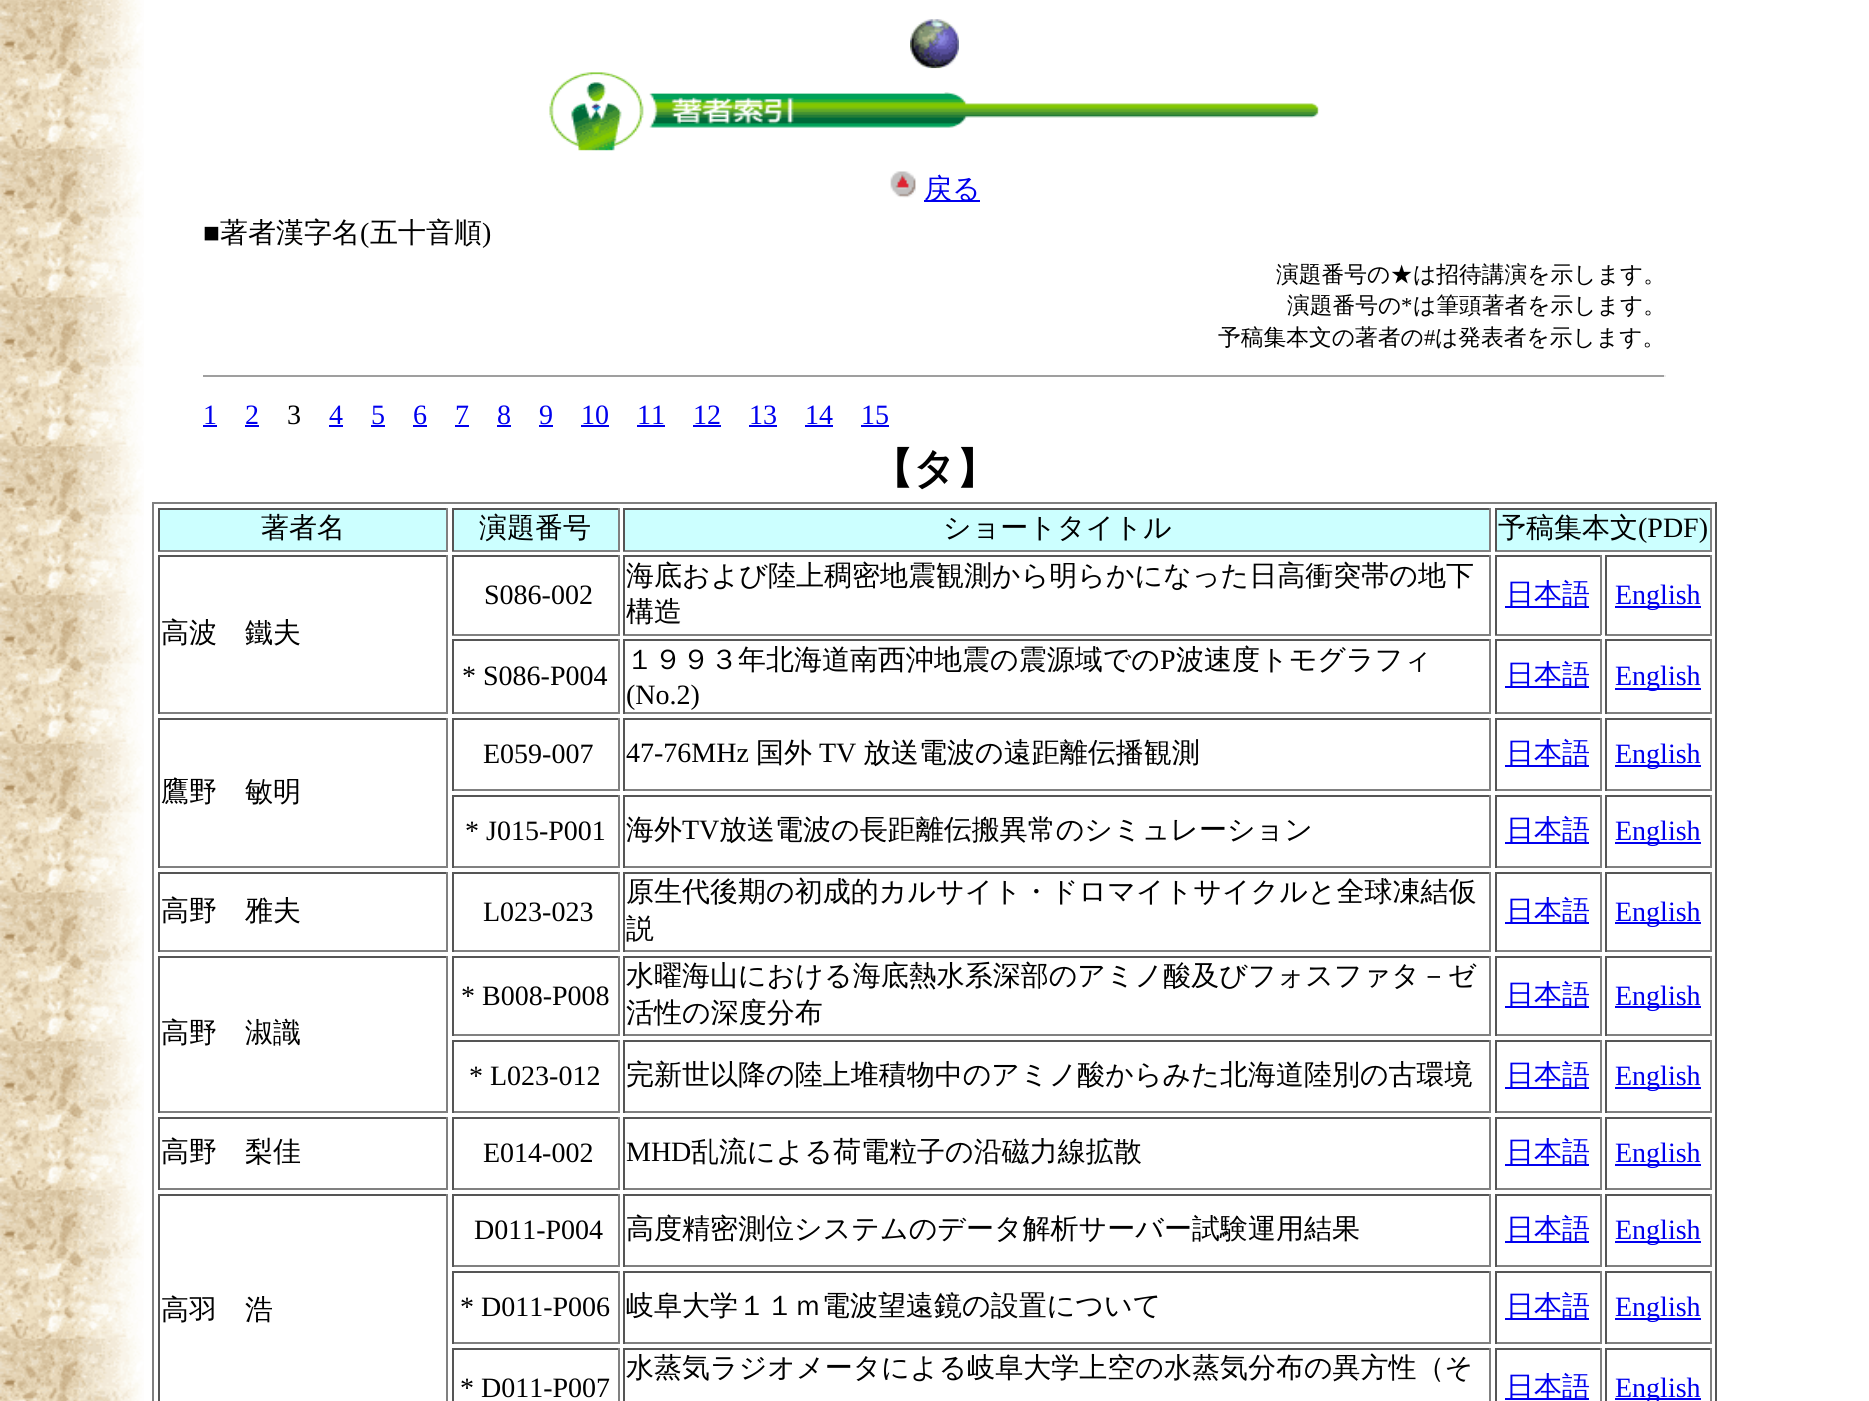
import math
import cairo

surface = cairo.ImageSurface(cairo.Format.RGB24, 1869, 1401)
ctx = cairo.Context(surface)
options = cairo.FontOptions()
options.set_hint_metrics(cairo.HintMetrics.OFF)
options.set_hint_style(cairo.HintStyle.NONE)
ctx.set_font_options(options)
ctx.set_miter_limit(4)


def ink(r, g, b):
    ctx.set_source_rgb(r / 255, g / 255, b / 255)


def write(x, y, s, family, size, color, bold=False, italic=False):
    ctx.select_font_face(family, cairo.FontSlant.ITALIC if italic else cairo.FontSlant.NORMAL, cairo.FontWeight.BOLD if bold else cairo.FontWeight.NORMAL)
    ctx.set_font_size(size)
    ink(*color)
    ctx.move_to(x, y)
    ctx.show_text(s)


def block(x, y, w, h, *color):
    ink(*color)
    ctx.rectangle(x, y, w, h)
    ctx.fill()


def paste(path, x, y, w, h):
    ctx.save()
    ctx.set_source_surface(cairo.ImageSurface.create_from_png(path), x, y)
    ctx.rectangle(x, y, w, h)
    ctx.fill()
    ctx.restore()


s1 = dict(family="WenQuanYi Zen Hei Medium", size=28, color=(0, 0, 238))
s2 = dict(family="Liberation Serif", size=28, color=(0, 0, 0))
s3 = dict(family="WenQuanYi Zen Hei Medium", size=28, color=(0, 0, 0))
s4 = dict(family="WenQuanYi Zen Hei Medium", size=22.75, color=(0, 0, 0))
s5 = dict(family="Liberation Serif", size=22.75, color=(0, 0, 0))
s6 = dict(family="Liberation Serif", size=28, color=(0, 0, 238))
s7 = dict(family="WenQuanYi Zen Hei", size=42, color=(0, 0, 0), bold=True)

ink(255, 255, 255)
ctx.paint()
paste("pic1.png", 0, 0, 144, 1401)
paste("pic2.png", 910, 19, 49, 50)
paste("pic3.png", 549, 68, 771, 83)
paste("pic4.png", 890, 171, 26, 27)
block(924, 200, 56, 2, 0, 0, 238)
write(924, 198, "戻る", **s1)
write(203, 242, "■", **s2)
write(220, 242, "著者漢字名", **s3)
write(360, 242, "(", **s2)
write(370, 242, "五十音順", **s3)
write(482, 242, ")", **s2)
write(1276, 282, "演題番号の★は招待講演を示します。", **s4)
write(1287, 313, "演題番号の", **s4)
write(1401, 313, "*", **s5)
write(1413, 313, "は筆頭著者を示します。", **s4)
write(1218, 345, "予稿集本文の著者の", **s4)
write(1424, 345, "#", **s5)
write(1435, 345, "は発表者を示します。", **s4)
block(203, 375, 1463, 2, 159, 159, 159)
block(1664, 375, 2, 2, 238, 238, 238)
write(203, 424, "1", **s6)
block(203, 425, 14, 2, 0, 0, 238)
write(245, 424, "2", **s6)
block(245, 425, 14, 2, 0, 0, 238)
write(287, 424, "3", **s2)
write(329, 424, "4", **s6)
block(329, 425, 14, 2, 0, 0, 238)
write(371, 424, "5", **s6)
block(371, 425, 14, 2, 0, 0, 238)
write(413, 424, "6", **s6)
block(413, 425, 14, 2, 0, 0, 238)
write(455, 424, "7", **s6)
block(455, 425, 14, 2, 0, 0, 238)
write(497, 424, "8", **s6)
block(497, 425, 14, 2, 0, 0, 238)
write(539, 424, "9", **s6)
block(539, 425, 14, 2, 0, 0, 238)
write(581, 424, "10", **s6)
block(581, 425, 28, 2, 0, 0, 238)
write(637, 424, "11", **s6)
block(637, 425, 28, 2, 0, 0, 238)
write(693, 424, "12", **s6)
block(693, 425, 28, 2, 0, 0, 238)
write(749, 424, "13", **s6)
block(749, 425, 28, 2, 0, 0, 238)
write(805, 424, "14", **s6)
block(805, 425, 28, 2, 0, 0, 238)
write(861, 424, "15", **s6)
block(861, 425, 28, 2, 0, 0, 238)
write(871, 483, "【タ】", **s7)
block(152, 502, 1565, 2, 128, 128, 128)
block(1715, 502, 2, 899, 85, 85, 85)
block(152, 502, 2, 899, 128, 128, 128)
block(160, 510, 286, 40, 204, 255, 255)
block(158, 508, 290, 2, 85, 85, 85)
block(446, 508, 2, 43, 128, 128, 128)
block(158, 550, 290, 2, 128, 128, 128)
block(158, 508, 2, 43, 85, 85, 85)
write(261, 537, "著者名", **s3)
block(454, 510, 164, 40, 204, 255, 255)
block(452, 508, 168, 2, 85, 85, 85)
block(618, 508, 2, 43, 128, 128, 128)
block(452, 550, 168, 2, 128, 128, 128)
block(452, 508, 2, 43, 85, 85, 85)
write(479, 537, "演題番号", **s3)
block(625, 510, 864, 40, 204, 255, 255)
block(623, 508, 868, 2, 85, 85, 85)
block(1489, 508, 2, 43, 128, 128, 128)
block(623, 550, 868, 2, 128, 128, 128)
block(623, 508, 2, 43, 85, 85, 85)
write(943, 537, "ショートタイトル", **s3)
block(1497, 510, 213, 40, 204, 255, 255)
block(1495, 508, 217, 2, 85, 85, 85)
block(1710, 508, 2, 43, 128, 128, 128)
block(1495, 550, 217, 2, 128, 128, 128)
block(1495, 508, 2, 43, 85, 85, 85)
write(1498, 537, "予稿集本文", **s3)
write(1638, 537, "(PDF)", **s2)
block(452, 555, 168, 2, 85, 85, 85)
block(618, 555, 2, 80, 128, 128, 128)
block(452, 634, 168, 2, 128, 128, 128)
block(452, 555, 2, 80, 85, 85, 85)
write(484, 604, "S086-002", **s2)
block(623, 555, 868, 2, 85, 85, 85)
block(1489, 555, 2, 80, 128, 128, 128)
block(623, 634, 868, 2, 128, 128, 128)
block(623, 555, 2, 80, 85, 85, 85)
write(626, 585, "海底および陸上稠密地震観測から明らかになった日高衝突帯の地下", **s3)
write(626, 621, "構造", **s3)
block(1495, 555, 106, 2, 85, 85, 85)
block(1600, 555, 2, 80, 128, 128, 128)
block(1495, 634, 106, 2, 128, 128, 128)
block(1495, 555, 2, 80, 85, 85, 85)
block(1505, 606, 84, 2, 0, 0, 238)
write(1506, 603, "日本語", **s1)
block(1605, 555, 107, 2, 85, 85, 85)
block(1710, 555, 2, 80, 128, 128, 128)
block(1605, 634, 107, 2, 128, 128, 128)
block(1605, 555, 2, 80, 85, 85, 85)
block(1615, 606, 86, 2, 0, 0, 238)
write(1615, 604, "English", **s6)
block(158, 555, 290, 2, 85, 85, 85)
block(446, 555, 2, 159, 128, 128, 128)
block(158, 712, 290, 2, 128, 128, 128)
block(158, 555, 2, 159, 85, 85, 85)
write(161, 642, "高波　鐵夫", **s3)
block(452, 639, 168, 2, 85, 85, 85)
block(618, 639, 2, 75, 128, 128, 128)
block(452, 712, 168, 2, 128, 128, 128)
block(452, 639, 2, 75, 85, 85, 85)
write(462, 685, "* S086-P004", **s2)
block(623, 639, 868, 2, 85, 85, 85)
block(1489, 639, 2, 75, 128, 128, 128)
block(623, 712, 868, 2, 128, 128, 128)
block(623, 639, 2, 75, 85, 85, 85)
write(626, 669, "１９９３年北海道南西沖地震の震源域での", **s3)
write(1160, 669, "P", **s2)
write(1176, 669, "波速度トモグラフィ", **s3)
write(626, 704, "(No.2)", **s2)
block(1495, 639, 106, 2, 85, 85, 85)
block(1600, 639, 2, 75, 128, 128, 128)
block(1495, 712, 106, 2, 128, 128, 128)
block(1495, 639, 2, 75, 85, 85, 85)
block(1505, 686, 84, 2, 0, 0, 238)
write(1506, 684, "日本語", **s1)
block(1605, 639, 107, 2, 85, 85, 85)
block(1710, 639, 2, 75, 128, 128, 128)
block(1605, 712, 107, 2, 128, 128, 128)
block(1605, 639, 2, 75, 85, 85, 85)
block(1615, 688, 86, 2, 0, 0, 238)
write(1615, 685, "English", **s6)
block(452, 718, 168, 2, 85, 85, 85)
block(618, 718, 2, 73, 128, 128, 128)
block(452, 789, 168, 2, 128, 128, 128)
block(452, 718, 2, 73, 85, 85, 85)
write(483, 763, "E059-007", **s2)
block(623, 718, 868, 2, 85, 85, 85)
block(1489, 718, 2, 73, 128, 128, 128)
block(623, 789, 868, 2, 128, 128, 128)
block(623, 718, 2, 73, 85, 85, 85)
write(626, 762, "47-76MHz", **s2)
write(756, 762, "国外", **s3)
write(819, 762, "TV", **s2)
write(863, 762, "放送電波の遠距離伝播観測", **s3)
block(1495, 718, 106, 2, 85, 85, 85)
block(1600, 718, 2, 73, 128, 128, 128)
block(1495, 789, 106, 2, 128, 128, 128)
block(1495, 718, 2, 73, 85, 85, 85)
block(1505, 765, 84, 2, 0, 0, 238)
write(1506, 762, "日本語", **s1)
block(1605, 718, 107, 2, 85, 85, 85)
block(1710, 718, 2, 73, 128, 128, 128)
block(1605, 789, 107, 2, 128, 128, 128)
block(1605, 718, 2, 73, 85, 85, 85)
block(1615, 765, 86, 2, 0, 0, 238)
write(1615, 763, "English", **s6)
block(158, 718, 290, 2, 85, 85, 85)
block(446, 718, 2, 150, 128, 128, 128)
block(158, 866, 290, 2, 128, 128, 128)
block(158, 718, 2, 150, 85, 85, 85)
write(161, 801, "鷹野　敏明", **s3)
block(452, 795, 168, 2, 85, 85, 85)
block(618, 795, 2, 73, 128, 128, 128)
block(452, 866, 168, 2, 128, 128, 128)
block(452, 795, 2, 73, 85, 85, 85)
write(465, 840, "* J015-P001", **s2)
block(623, 795, 868, 2, 85, 85, 85)
block(1489, 795, 2, 73, 128, 128, 128)
block(623, 866, 868, 2, 128, 128, 128)
block(623, 795, 2, 73, 85, 85, 85)
write(626, 839, "海外", **s3)
write(682, 839, "TV", **s2)
write(719, 839, "放送電波の長距離伝搬異常のシミュレーション", **s3)
block(1495, 795, 106, 2, 85, 85, 85)
block(1600, 795, 2, 73, 128, 128, 128)
block(1495, 866, 106, 2, 128, 128, 128)
block(1495, 795, 2, 73, 85, 85, 85)
block(1505, 842, 84, 2, 0, 0, 238)
write(1506, 839, "日本語", **s1)
block(1605, 795, 107, 2, 85, 85, 85)
block(1710, 795, 2, 73, 128, 128, 128)
block(1605, 866, 107, 2, 128, 128, 128)
block(1605, 795, 2, 73, 85, 85, 85)
block(1615, 842, 86, 2, 0, 0, 238)
write(1615, 840, "English", **s6)
block(158, 872, 290, 2, 85, 85, 85)
block(446, 872, 2, 80, 128, 128, 128)
block(158, 950, 290, 2, 128, 128, 128)
block(158, 872, 2, 80, 85, 85, 85)
write(161, 920, "高野　雅夫", **s3)
block(452, 872, 168, 2, 85, 85, 85)
block(618, 872, 2, 80, 128, 128, 128)
block(452, 950, 168, 2, 128, 128, 128)
block(452, 872, 2, 80, 85, 85, 85)
write(483, 921, "L023-023", **s2)
block(623, 872, 868, 2, 85, 85, 85)
block(1489, 872, 2, 80, 128, 128, 128)
block(623, 950, 868, 2, 128, 128, 128)
block(623, 872, 2, 80, 85, 85, 85)
write(626, 901, "原生代後期の初成的カルサイト・ドロマイトサイクルと全球凍結仮", **s3)
write(626, 938, "説", **s3)
block(1495, 872, 106, 2, 85, 85, 85)
block(1600, 872, 2, 80, 128, 128, 128)
block(1495, 950, 106, 2, 128, 128, 128)
block(1495, 872, 2, 80, 85, 85, 85)
block(1505, 922, 84, 2, 0, 0, 238)
write(1506, 920, "日本語", **s1)
block(1605, 872, 107, 2, 85, 85, 85)
block(1710, 872, 2, 80, 128, 128, 128)
block(1605, 950, 107, 2, 128, 128, 128)
block(1605, 872, 2, 80, 85, 85, 85)
block(1615, 922, 86, 2, 0, 0, 238)
write(1615, 921, "English", **s6)
block(452, 956, 168, 2, 85, 85, 85)
block(618, 956, 2, 80, 128, 128, 128)
block(452, 1034, 168, 2, 128, 128, 128)
block(452, 956, 2, 80, 85, 85, 85)
write(461, 1005, "* B008-P008", **s2)
block(623, 956, 868, 2, 85, 85, 85)
block(1489, 956, 2, 80, 128, 128, 128)
block(623, 1034, 868, 2, 128, 128, 128)
block(623, 956, 2, 80, 85, 85, 85)
write(626, 985, "水曜海山における海底熱水系深部のアミノ酸及びフォスファタ－ゼ", **s3)
write(626, 1022, "活性の深度分布", **s3)
block(1495, 956, 106, 2, 85, 85, 85)
block(1600, 956, 2, 80, 128, 128, 128)
block(1495, 1034, 106, 2, 128, 128, 128)
block(1495, 956, 2, 80, 85, 85, 85)
block(1505, 1006, 84, 2, 0, 0, 238)
write(1506, 1004, "日本語", **s1)
block(1605, 956, 107, 2, 85, 85, 85)
block(1710, 956, 2, 80, 128, 128, 128)
block(1605, 1034, 107, 2, 128, 128, 128)
block(1605, 956, 2, 80, 85, 85, 85)
block(1615, 1006, 86, 2, 0, 0, 238)
write(1615, 1005, "English", **s6)
block(158, 956, 290, 2, 85, 85, 85)
block(446, 956, 2, 157, 128, 128, 128)
block(158, 1111, 290, 2, 128, 128, 128)
block(158, 956, 2, 157, 85, 85, 85)
write(161, 1042, "高野　淑識", **s3)
block(452, 1040, 168, 2, 85, 85, 85)
block(618, 1040, 2, 73, 128, 128, 128)
block(452, 1111, 168, 2, 128, 128, 128)
block(452, 1040, 2, 73, 85, 85, 85)
write(469, 1085, "* L023-012", **s2)
block(623, 1040, 868, 2, 85, 85, 85)
block(1489, 1040, 2, 73, 128, 128, 128)
block(623, 1111, 868, 2, 128, 128, 128)
block(623, 1040, 2, 73, 85, 85, 85)
write(626, 1084, "完新世以降の陸上堆積物中のアミノ酸からみた北海道陸別の古環境", **s3)
block(1495, 1040, 106, 2, 85, 85, 85)
block(1600, 1040, 2, 73, 128, 128, 128)
block(1495, 1111, 106, 2, 128, 128, 128)
block(1495, 1040, 2, 73, 85, 85, 85)
block(1505, 1087, 84, 2, 0, 0, 238)
write(1506, 1084, "日本語", **s1)
block(1605, 1040, 107, 2, 85, 85, 85)
block(1710, 1040, 2, 73, 128, 128, 128)
block(1605, 1111, 107, 2, 128, 128, 128)
block(1605, 1040, 2, 73, 85, 85, 85)
block(1615, 1087, 86, 2, 0, 0, 238)
write(1615, 1085, "English", **s6)
block(158, 1117, 290, 2, 85, 85, 85)
block(446, 1117, 2, 73, 128, 128, 128)
block(158, 1188, 290, 2, 128, 128, 128)
block(158, 1117, 2, 73, 85, 85, 85)
write(161, 1161, "高野　梨佳", **s3)
block(452, 1117, 168, 2, 85, 85, 85)
block(618, 1117, 2, 73, 128, 128, 128)
block(452, 1188, 168, 2, 128, 128, 128)
block(452, 1117, 2, 73, 85, 85, 85)
write(483, 1162, "E014-002", **s2)
block(623, 1117, 868, 2, 85, 85, 85)
block(1489, 1117, 2, 73, 128, 128, 128)
block(623, 1188, 868, 2, 128, 128, 128)
block(623, 1117, 2, 73, 85, 85, 85)
write(626, 1161, "MHD", **s2)
write(691, 1161, "乱流による荷電粒子の沿磁力線拡散", **s3)
block(1495, 1117, 106, 2, 85, 85, 85)
block(1600, 1117, 2, 73, 128, 128, 128)
block(1495, 1188, 106, 2, 128, 128, 128)
block(1495, 1117, 2, 73, 85, 85, 85)
block(1505, 1164, 84, 2, 0, 0, 238)
write(1506, 1161, "日本語", **s1)
block(1605, 1117, 107, 2, 85, 85, 85)
block(1710, 1117, 2, 73, 128, 128, 128)
block(1605, 1188, 107, 2, 128, 128, 128)
block(1605, 1117, 2, 73, 85, 85, 85)
block(1615, 1164, 86, 2, 0, 0, 238)
write(1615, 1162, "English", **s6)
block(452, 1194, 168, 2, 85, 85, 85)
block(618, 1194, 2, 73, 128, 128, 128)
block(452, 1265, 168, 2, 128, 128, 128)
block(452, 1194, 2, 73, 85, 85, 85)
write(474, 1239, "D011-P004", **s2)
block(623, 1194, 868, 2, 85, 85, 85)
block(1489, 1194, 2, 73, 128, 128, 128)
block(623, 1265, 868, 2, 128, 128, 128)
block(623, 1194, 2, 73, 85, 85, 85)
write(626, 1238, "高度精密測位システムのデータ解析サーバー試験運用結果", **s3)
block(1495, 1194, 106, 2, 85, 85, 85)
block(1600, 1194, 2, 73, 128, 128, 128)
block(1495, 1265, 106, 2, 128, 128, 128)
block(1495, 1194, 2, 73, 85, 85, 85)
block(1505, 1241, 84, 2, 0, 0, 238)
write(1506, 1238, "日本語", **s1)
block(1605, 1194, 107, 2, 85, 85, 85)
block(1710, 1194, 2, 73, 128, 128, 128)
block(1605, 1265, 107, 2, 128, 128, 128)
block(1605, 1194, 2, 73, 85, 85, 85)
block(1615, 1241, 86, 2, 0, 0, 238)
write(1615, 1239, "English", **s6)
block(158, 1194, 290, 2, 85, 85, 85)
block(446, 1194, 2, 207, 128, 128, 128)
block(158, 1194, 2, 207, 85, 85, 85)
write(161, 1319, "高羽　浩", **s3)
block(452, 1271, 168, 2, 85, 85, 85)
block(618, 1271, 2, 73, 128, 128, 128)
block(452, 1342, 168, 2, 128, 128, 128)
block(452, 1271, 2, 73, 85, 85, 85)
write(460, 1316, "* D011-P006", **s2)
block(623, 1271, 868, 2, 85, 85, 85)
block(1489, 1271, 2, 73, 128, 128, 128)
block(623, 1342, 868, 2, 128, 128, 128)
block(623, 1271, 2, 73, 85, 85, 85)
write(626, 1315, "岐阜大学１１ｍ電波望遠鏡の設置について", **s3)
block(1495, 1271, 106, 2, 85, 85, 85)
block(1600, 1271, 2, 73, 128, 128, 128)
block(1495, 1342, 106, 2, 128, 128, 128)
block(1495, 1271, 2, 73, 85, 85, 85)
block(1505, 1318, 84, 2, 0, 0, 238)
write(1506, 1315, "日本語", **s1)
block(1605, 1271, 107, 2, 85, 85, 85)
block(1710, 1271, 2, 73, 128, 128, 128)
block(1605, 1342, 107, 2, 128, 128, 128)
block(1605, 1271, 2, 73, 85, 85, 85)
block(1615, 1318, 86, 2, 0, 0, 238)
write(1615, 1316, "English", **s6)
block(623, 1348, 868, 2, 85, 85, 85)
block(1489, 1348, 2, 53, 128, 128, 128)
block(623, 1348, 2, 53, 85, 85, 85)
write(626, 1377, "水蒸気ラジオメータによる岐阜大学上空の水蒸気分布の異方性（そ", **s3)
block(452, 1348, 168, 2, 85, 85, 85)
block(618, 1348, 2, 53, 128, 128, 128)
block(452, 1348, 2, 53, 85, 85, 85)
write(460, 1397, "* D011-P007", **s2)
block(1495, 1348, 106, 2, 85, 85, 85)
block(1600, 1348, 2, 53, 128, 128, 128)
block(1495, 1348, 2, 53, 85, 85, 85)
block(1505, 1398, 84, 2, 0, 0, 238)
write(1506, 1396, "日本語", **s1)
block(1605, 1348, 107, 2, 85, 85, 85)
block(1710, 1348, 2, 53, 128, 128, 128)
block(1605, 1348, 2, 53, 85, 85, 85)
block(1615, 1398, 86, 2, 0, 0, 238)
write(1615, 1397, "English", **s6)
surface.write_to_png("screenshot.png")
